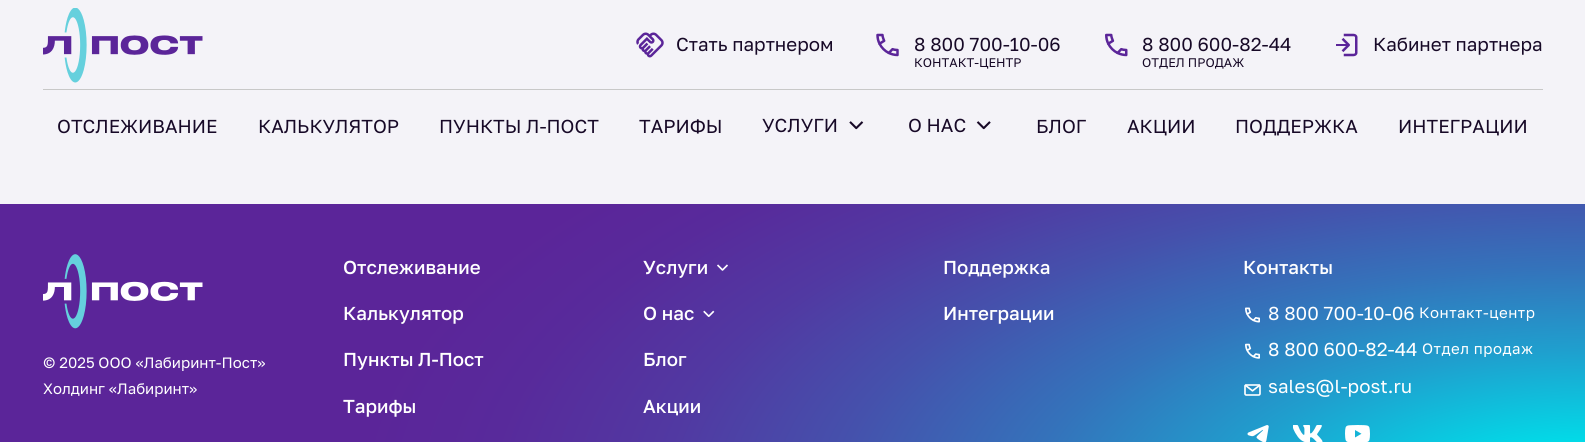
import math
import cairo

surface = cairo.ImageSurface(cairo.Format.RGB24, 1585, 442)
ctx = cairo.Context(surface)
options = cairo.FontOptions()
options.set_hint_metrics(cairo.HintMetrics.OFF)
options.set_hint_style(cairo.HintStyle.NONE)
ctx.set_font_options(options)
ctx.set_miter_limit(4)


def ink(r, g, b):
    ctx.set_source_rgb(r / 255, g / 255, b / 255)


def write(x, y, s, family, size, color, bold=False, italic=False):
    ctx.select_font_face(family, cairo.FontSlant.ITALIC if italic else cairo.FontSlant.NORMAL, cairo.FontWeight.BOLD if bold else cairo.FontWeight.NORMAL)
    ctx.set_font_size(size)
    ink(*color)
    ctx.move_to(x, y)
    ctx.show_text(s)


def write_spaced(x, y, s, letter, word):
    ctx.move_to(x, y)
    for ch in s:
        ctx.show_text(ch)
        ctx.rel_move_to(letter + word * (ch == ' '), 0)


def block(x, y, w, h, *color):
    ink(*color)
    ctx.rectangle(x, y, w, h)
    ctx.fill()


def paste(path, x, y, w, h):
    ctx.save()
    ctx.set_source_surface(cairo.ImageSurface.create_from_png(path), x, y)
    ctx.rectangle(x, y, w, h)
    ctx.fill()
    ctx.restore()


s1 = dict(family="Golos", size=18.75, color=(23, 9, 39))
s2 = dict(family="Golos", size=12.5, color=(23, 9, 39))
s3 = dict(family="Golos", size=15, color=(255, 255, 255))
s4 = dict(family="Golos Medium", size=18.75, color=(255, 255, 255))
s5 = dict(family="Golos", size=18.75, color=(255, 255, 255))

ink(244, 243, 248)
ctx.paint()
block(43, 89, 1500, 1, 200, 200, 200)
paste("pic1.png", 43, 8, 160, 75)
paste("pic2.png", 636, 32, 28, 26)
write(676, 51, "Стать партнером", **s1)
paste("pic3.png", 876, 33, 23, 24)
write(914, 51, "8 800 700-10-06", **s1)
write(914, 67, "КОНТАКТ-ЦЕНТР", **s2)
paste("pic4.png", 1105, 33, 23, 24)
write(1142, 51, "8 800 600-82-44", **s1)
write(1142, 67, "ОТДЕЛ ПРОДАЖ", **s2)
paste("pic5.png", 1336, 33, 22, 24)
write(1373, 51, "Кабинет партнера", **s1)
write(57, 133, "ОТСЛЕЖИВАНИЕ", **s1)
write(258, 133, "КАЛЬКУЛЯТОР", **s1)
write(439, 133, "ПУНКТЫ Л-ПОСТ", **s1)
write(639, 133, "ТАРИФЫ", **s1)
write(762, 132, "УСЛУГИ", **s1)
paste("pic6.png", 849, 121, 15, 9)
write(908, 132, "О НАС", **s1)
paste("pic7.png", 976, 121, 15, 9)
write(1036, 133, "БЛОГ", **s1)
write(1127, 133, "АКЦИИ", **s1)
write(1235, 133, "ПОДДЕРЖКА", **s1)
write(1398, 133, "ИНТЕГРАЦИИ", **s1)
gradient = cairo.RadialGradient(0, 0, 0, 0, 0, 1)
gradient.set_matrix(cairo.Matrix(1 / 1229, 0, 0, 1 / 514, -1 * 1585 / 1229, -1 * 499 / 514))
gradient.add_color_stop_rgba(0.1, 0, 0.871, 0.914, 1)
gradient.add_color_stop_rgba(0.13, 0.02, 0.831, 0.898, 1)
gradient.add_color_stop_rgba(0.29, 0.122, 0.624, 0.808, 1)
gradient.add_color_stop_rgba(0.45, 0.204, 0.451, 0.733, 1)
gradient.add_color_stop_rgba(0.61, 0.271, 0.318, 0.675, 1)
gradient.add_color_stop_rgba(0.75, 0.318, 0.224, 0.635, 1)
gradient.add_color_stop_rgba(0.89, 0.345, 0.165, 0.608, 1)
gradient.add_color_stop_rgba(1, 0.357, 0.145, 0.6, 1)
ctx.set_source(gradient)
ctx.rectangle(0, 204, 1585, 238)
ctx.fill()
paste("pic8.png", 43, 254, 160, 75)
write(43, 368, "© 2025 ООО «Лабиринт-Пост»", **s3)
write(43, 394, "Холдинг «Лабиринт»", **s3)
write(343, 274, "Отслеживание", **s4)
write(343, 320, "Калькулятор", **s4)
write(343, 366, "Пункты Л-Пост", **s4)
write(343, 413, "Тарифы", **s4)
write(643, 274, "Услуги", **s4)
paste("pic9.png", 717, 264, 11, 7)
write(643, 320, "О нас", **s4)
paste("pic10.png", 703, 310, 12, 7)
write(643, 366, "Блог", **s4)
write(643, 413, "Акции", **s4)
write(943, 274, "Поддержка", **s4)
write(943, 320, "Интеграции", **s4)
write(1243, 274, "Контакты", **s4)
paste("pic11.png", 1245, 307, 15, 16)
write(1268, 320, "8 800 700-10-06", **s5)
ctx.set_font_size(15)
write_spaced(1419, 318, "Контакт-центр", 0.5, 0)
paste("pic12.png", 1245, 343, 15, 16)
write(1268, 356, "8 800 600-82-44", **s5)
ctx.set_font_size(15)
write_spaced(1422, 354, "Отдел продаж", 0.5, 0)
paste("pic13.png", 1244, 384, 17, 12)
write(1268, 393, "sales@l-post.ru", **s5)
paste("pic14.png", 1247, 425, 22, 17)
paste("pic15.png", 1293, 425, 30, 17)
paste("pic16.png", 1345, 425, 25, 17)
surface.write_to_png("screenshot.png")
